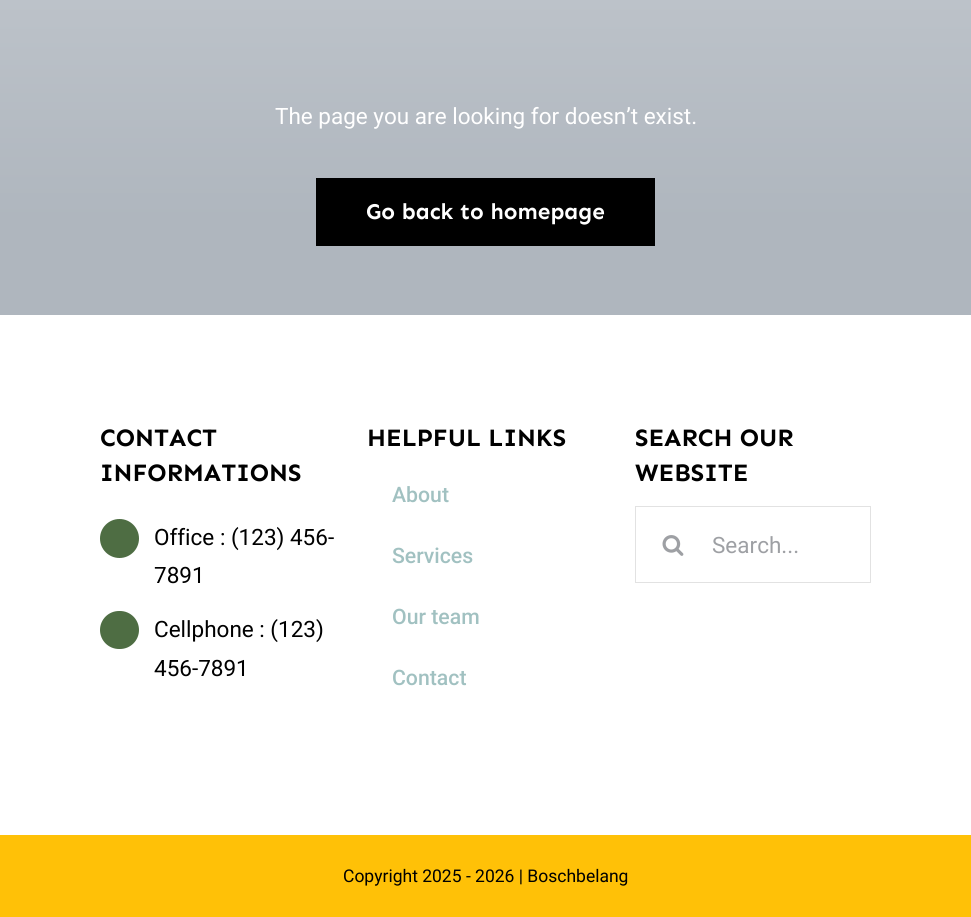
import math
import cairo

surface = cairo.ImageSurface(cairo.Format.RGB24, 971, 917)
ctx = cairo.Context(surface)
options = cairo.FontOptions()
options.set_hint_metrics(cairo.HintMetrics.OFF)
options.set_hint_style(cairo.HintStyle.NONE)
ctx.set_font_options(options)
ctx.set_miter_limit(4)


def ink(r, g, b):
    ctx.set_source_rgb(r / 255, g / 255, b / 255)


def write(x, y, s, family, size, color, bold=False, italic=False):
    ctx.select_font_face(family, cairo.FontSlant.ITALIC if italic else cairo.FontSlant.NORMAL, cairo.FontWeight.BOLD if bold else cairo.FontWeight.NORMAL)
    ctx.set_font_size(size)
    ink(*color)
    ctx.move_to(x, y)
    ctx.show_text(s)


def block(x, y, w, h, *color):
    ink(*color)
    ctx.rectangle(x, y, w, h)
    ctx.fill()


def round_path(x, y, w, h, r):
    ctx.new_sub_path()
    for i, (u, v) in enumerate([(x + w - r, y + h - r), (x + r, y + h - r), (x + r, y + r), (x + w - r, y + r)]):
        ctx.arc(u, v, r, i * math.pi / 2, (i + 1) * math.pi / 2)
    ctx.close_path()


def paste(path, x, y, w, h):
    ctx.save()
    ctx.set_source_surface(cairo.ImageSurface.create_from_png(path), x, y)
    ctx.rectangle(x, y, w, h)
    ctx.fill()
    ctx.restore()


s1 = dict(family="Roboto", size=22.5, color=(255, 255, 255))
s2 = dict(family="Sen", size=22.5, color=(255, 255, 255), bold=True)
s3 = dict(family="Sen", size=25, color=(0, 0, 0), bold=True)
s4 = dict(family="Roboto", size=22.5, color=(0, 0, 0))
s5 = dict(family="Roboto Medium", size=21.25, color=(161, 193, 193))
s6 = dict(family="Roboto", size=22.5, color=(158, 160, 164))
s7 = dict(family="Roboto", size=17.5, color=(0, 0, 0))

ink(255, 255, 255)
ctx.paint()
gradient = cairo.LinearGradient(486, -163, 486, 315)
gradient.add_color_stop_rgba(0, 0.776, 0.796, 0.82, 1)
gradient.add_color_stop_rgba(0.8, 0.686, 0.714, 0.745, 1)
ctx.set_source(gradient)
ctx.rectangle(0, 0, 971, 315)
ctx.fill()
write(275, 124, "The page you are looking for doesn’t exist.", **s1)
block(316, 178, 339, 68, 0, 0, 0)
write(366, 219, "Go back to homepage", **s2)
write(100, 446, "CONTACT", **s3)
write(100, 481, "INFORMATIONS", **s3)
ink(78, 109, 67)
ctx.new_path()
ctx.arc(119.5, 538.5, 19.5, 0, 2 * math.pi)
ctx.fill()
write(154, 545, "Office : (123) 456-", **s4)
write(154, 583, "7891", **s4)
ink(78, 109, 67)
round_path(100, 611, 39, 38, 19)
ctx.fill()
write(154, 637, "Cellphone : (123)", **s4)
write(154, 676, "456-7891", **s4)
write(367, 446, "HELPFUL LINKS", **s3)
write(392, 502, "About", **s5)
write(392, 563, "Services", **s5)
write(392, 624, "Our team", **s5)
write(392, 685, "Contact", **s5)
write(635, 446, "SEARCH OUR", **s3)
write(635, 481, "WEBSITE", **s3)
ctx.rectangle(635.5, 506.5, 235, 76)
ink(226, 226, 226)
ctx.set_line_width(1)
ctx.stroke()
paste("pic1.png", 662, 535, 22, 21)
write(712, 553, "Search...", **s6)
block(0, 835, 971, 82, 255, 193, 7)
write(343, 882, "Copyright 2025 - 2026 | Boschbelang", **s7)
surface.write_to_png("screenshot.png")
